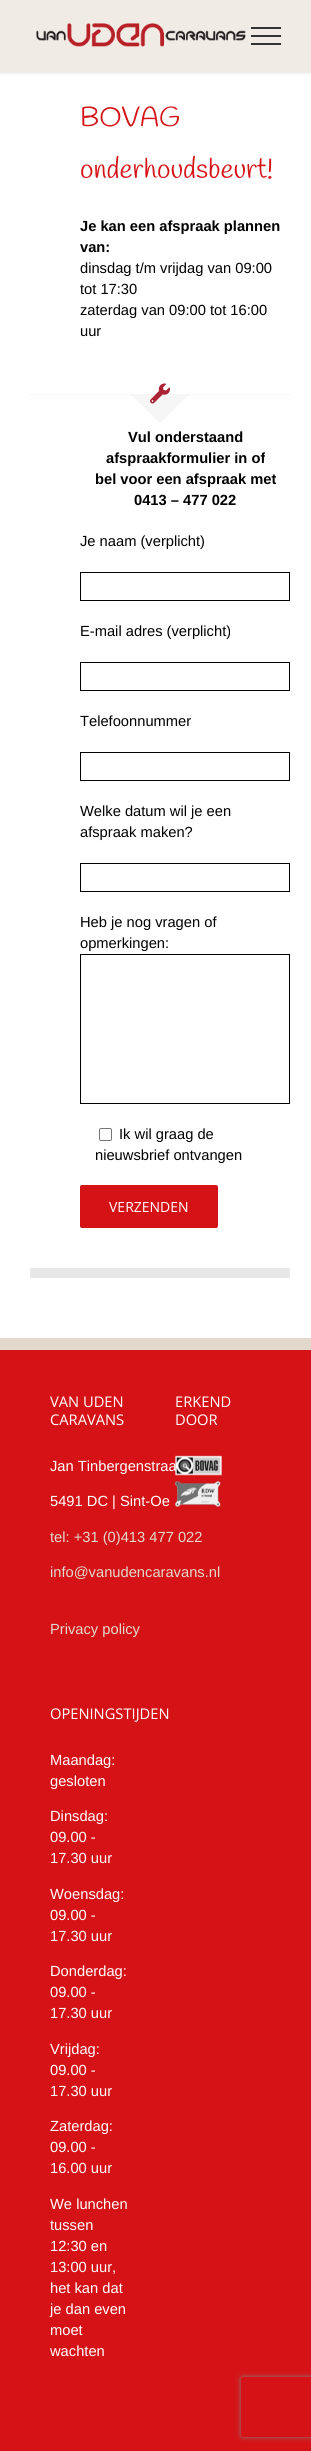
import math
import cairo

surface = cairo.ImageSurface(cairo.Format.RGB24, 311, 2451)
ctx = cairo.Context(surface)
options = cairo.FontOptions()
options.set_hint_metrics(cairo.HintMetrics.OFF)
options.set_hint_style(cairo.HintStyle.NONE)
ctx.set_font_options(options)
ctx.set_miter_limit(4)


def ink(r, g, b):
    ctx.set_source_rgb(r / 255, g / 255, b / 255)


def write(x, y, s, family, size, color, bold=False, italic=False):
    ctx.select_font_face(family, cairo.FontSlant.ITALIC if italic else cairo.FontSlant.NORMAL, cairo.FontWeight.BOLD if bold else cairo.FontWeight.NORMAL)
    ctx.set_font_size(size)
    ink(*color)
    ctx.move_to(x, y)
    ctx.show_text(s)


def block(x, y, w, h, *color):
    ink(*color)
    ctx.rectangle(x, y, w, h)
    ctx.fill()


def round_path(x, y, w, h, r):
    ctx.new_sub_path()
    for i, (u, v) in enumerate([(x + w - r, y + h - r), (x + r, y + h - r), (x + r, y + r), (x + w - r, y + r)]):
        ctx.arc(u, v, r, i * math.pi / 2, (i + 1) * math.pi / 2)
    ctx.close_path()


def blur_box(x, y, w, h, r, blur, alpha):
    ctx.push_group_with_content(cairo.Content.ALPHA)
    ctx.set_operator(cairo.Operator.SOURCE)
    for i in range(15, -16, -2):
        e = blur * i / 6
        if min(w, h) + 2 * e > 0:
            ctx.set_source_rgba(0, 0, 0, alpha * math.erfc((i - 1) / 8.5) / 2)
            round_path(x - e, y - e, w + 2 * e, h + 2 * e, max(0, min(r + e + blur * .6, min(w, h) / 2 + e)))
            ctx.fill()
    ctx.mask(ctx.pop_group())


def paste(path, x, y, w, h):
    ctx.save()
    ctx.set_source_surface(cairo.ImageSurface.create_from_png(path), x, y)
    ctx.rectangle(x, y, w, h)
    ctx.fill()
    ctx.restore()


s1 = dict(family="Handlee", size=27.5, color=(213, 19, 23))
s2 = dict(family="Liberation Sans", size=14.7, color=(0, 0, 0), bold=True)
s3 = dict(family="Liberation Sans", size=14.7, color=(0, 0, 0))
s4 = dict(family="Open Sans", size=14, color=(255, 255, 255))
s5 = dict(family="Open Sans", size=14.7, color=(255, 255, 255))
s6 = dict(family="Liberation Sans", size=14.7, color=(255, 255, 255))
s7 = dict(family="Liberation Sans", size=14.7, color=(226, 216, 204))

ink(255, 255, 255)
ctx.paint()
ink(0, 0, 0)
blur_box(0, 1, 311, 72, 0, 1.5, 0.12)
block(0, 0, 311, 72, 241, 235, 230)
paste("pic1.png", 36, 23, 210, 24)
block(251, 27, 30, 2, 51, 51, 51)
block(251, 35, 30, 2, 51, 51, 51)
block(251, 43, 30, 2, 51, 51, 51)
write(80, 126, "BOVAG", **s1)
write(80, 178, "onderhoudsbeurt!", **s1)
write(80, 231, "Je kan een afspraak plannen", **s2)
write(80, 252, "van:", **s2)
write(80, 273, "dinsdag t/m vrijdag van 09:00", **s3)
write(80, 294, "tot 17:30", **s3)
write(80, 315, "zaterdag van 09:00 tot 16:00", **s3)
write(80, 336, "uur", **s3)
block(30, 394, 260, 1, 246, 246, 246)
ctx.new_path()
ctx.move_to(131, 394)
ctx.line_to(189, 394)
ctx.line_to(160, 423)
ctx.close_path()
ctx.fill()
ctx.new_path()
ctx.move_to(159.5, 422.5)
ctx.line_to(187.5, 394)
ctx.line_to(188.5, 395)
ctx.line_to(160, 423)
ctx.close_path()
ctx.fill()
ctx.new_path()
ctx.move_to(131.5, 395)
ctx.line_to(132.5, 394)
ctx.line_to(160.5, 422.5)
ctx.line_to(160, 423)
ctx.close_path()
ctx.fill()
paste("pic2.png", 150, 383, 20, 21)
write(128, 442, "Vul onderstaand", **s2)
write(106, 463, "afspraakformulier in of", **s2)
write(95, 484, "bel voor een afspraak met", **s2)
write(134, 505, "0413 – 477 022", **s2)
write(80, 546, "Je naam (verplicht)", **s3)
ctx.rectangle(80.5, 572.5, 209, 28)
ctx.set_line_width(1)
ctx.stroke()
write(80, 636, "E-mail adres (verplicht)", **s3)
ctx.rectangle(80.5, 662.5, 209, 28)
ctx.stroke()
write(80, 726, "Telefoonnummer", **s3)
ctx.rectangle(80.5, 752.5, 209, 28)
ctx.stroke()
write(80, 816, "Welke datum wil je een", **s3)
write(80, 837, "afspraak maken?", **s3)
ctx.rectangle(80.5, 863.5, 209, 28)
ctx.stroke()
write(80, 927, "Heb je nog vragen of", **s3)
write(80, 948, "opmerkingen:", **s3)
ctx.rectangle(80.5, 954.5, 209, 149)
ctx.stroke()
round_path(99.5, 1128.5, 12, 12, 1.5)
ink(118, 118, 118)
ctx.stroke()
write(119, 1139, "Ik wil graag de", **s3)
write(95, 1160, "nieuwsbrief ontvangen", **s3)
ink(213, 19, 23)
round_path(80, 1185, 138, 43, 2)
ctx.fill()
write(109, 1212, "VERZENDEN", **s4)
block(30, 1268, 260, 10, 232, 232, 232)
block(0, 1350, 311, 1101, 213, 19, 23)
block(0, 1338, 311, 12, 226, 216, 204)
write(50, 1407, "VAN UDEN", **s5)
write(50, 1425, "CARAVANS", **s5)
write(50, 1471, "Jan Tinbergenstraa", **s6)
write(50, 1506, "5491 DC | Sint-Oe", **s6)
write(50, 1542, "tel: +31 (0)413 477 022", **s7)
write(50, 1577, "info@vanudencaravans.nl", **s7)
write(50, 1634, "Privacy policy", **s7)
write(175, 1407, "ERKEND", **s5)
write(175, 1425, "DOOR", **s5)
paste("pic3.png", 175, 1455, 47, 52)
write(50, 1719, "OPENINGSTIJDEN", **s5)
write(50, 1765, "Maandag:", **s6)
write(50, 1786, "gesloten", **s6)
write(50, 1821, "Dinsdag:", **s6)
write(50, 1842, "09.00 -", **s6)
write(50, 1863, "17.30 uur", **s6)
write(50, 1899, "Woensdag:", **s6)
write(50, 1920, "09.00 -", **s6)
write(50, 1941, "17.30 uur", **s6)
write(50, 1976, "Donderdag:", **s6)
write(50, 1997, "09.00 -", **s6)
write(50, 2018, "17.30 uur", **s6)
write(50, 2054, "Vrijdag:", **s6)
write(50, 2075, "09.00 -", **s6)
write(50, 2096, "17.30 uur", **s6)
write(50, 2131, "Zaterdag:", **s6)
write(50, 2152, "09.00 -", **s6)
write(50, 2173, "16.00 uur", **s6)
write(50, 2209, "We lunchen", **s6)
write(50, 2230, "tussen", **s6)
write(50, 2251, "12:30 en", **s6)
write(50, 2272, "13:00 uur,", **s6)
write(50, 2293, "het kan dat", **s6)
write(50, 2314, "je dan even", **s6)
write(50, 2335, "moet", **s6)
write(50, 2356, "wachten", **s6)
ctx.save()
ctx.set_fill_rule(cairo.FillRule.EVEN_ODD)
ctx.new_path()
ctx.move_to(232, 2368)
ctx.line_to(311, 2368)
ctx.line_to(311, 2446)
ctx.line_to(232, 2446)
ctx.close_path()
ctx.move_to(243, 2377)
ctx.line_to(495, 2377)
ctx.curve_to(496, 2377, 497, 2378, 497, 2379)
ctx.line_to(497, 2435)
ctx.curve_to(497, 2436, 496, 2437, 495, 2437)
ctx.line_to(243, 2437)
ctx.curve_to(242, 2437, 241, 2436, 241, 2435)
ctx.line_to(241, 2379)
ctx.curve_to(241, 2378, 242, 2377, 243, 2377)
ctx.close_path()
ctx.clip()
ink(128, 128, 128)
blur_box(241, 2377, 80, 60, 2, 2.5, 1)
ctx.restore()
surface.write_to_png("screenshot.png")
